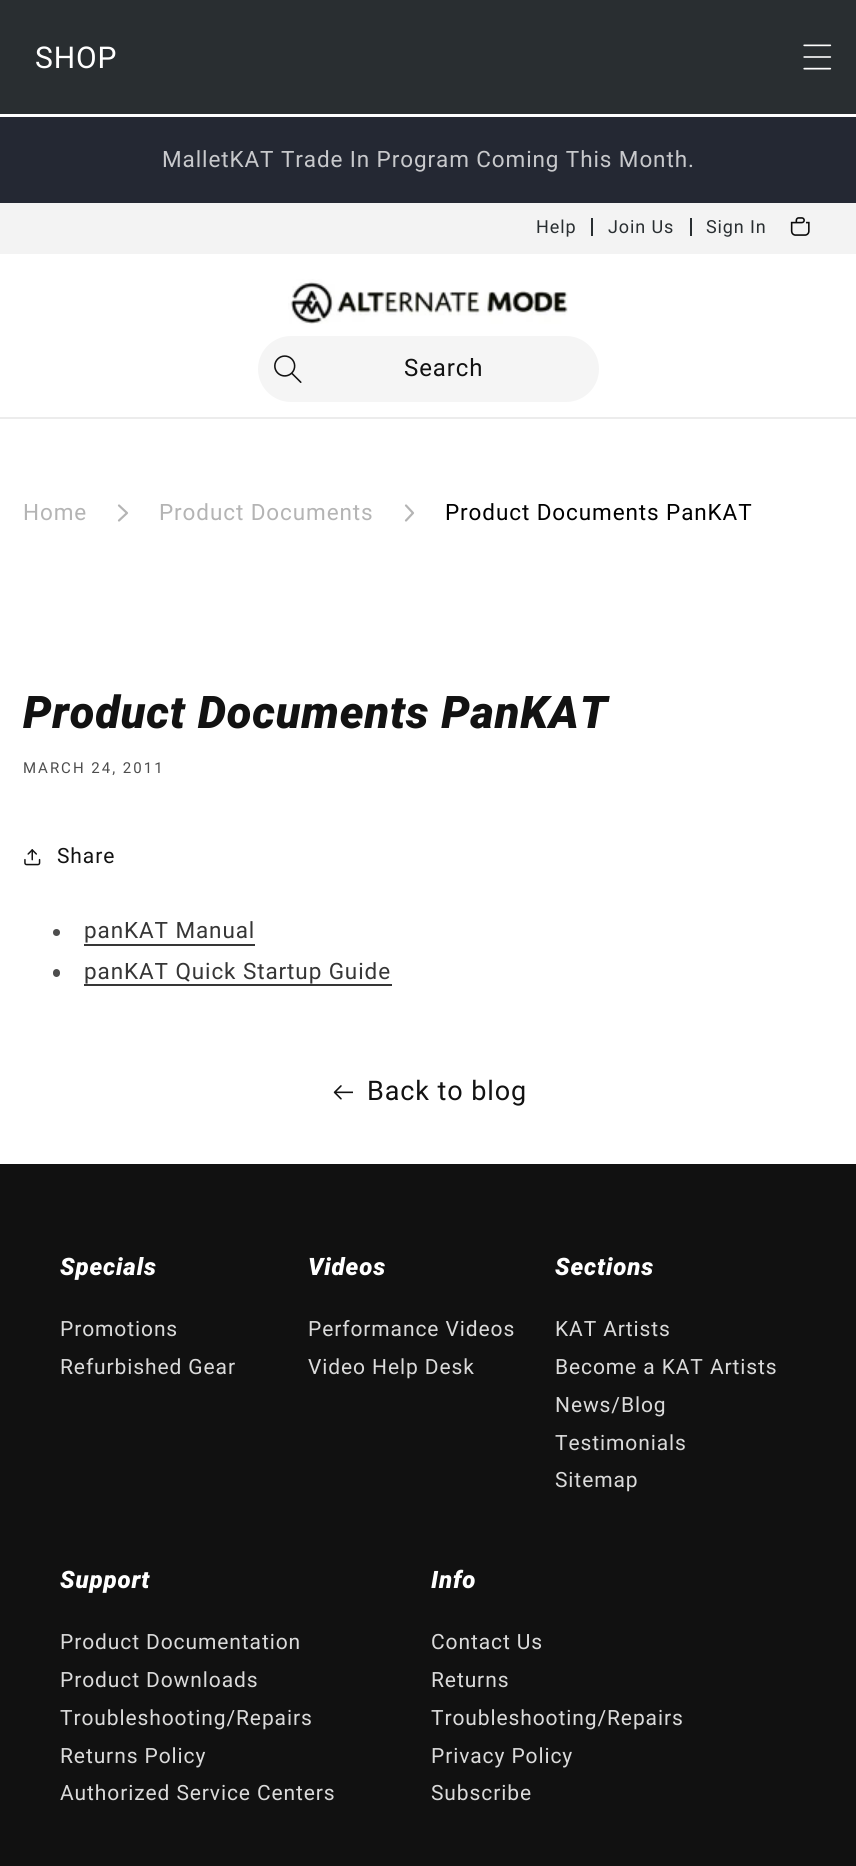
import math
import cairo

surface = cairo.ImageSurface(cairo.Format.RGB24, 856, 1866)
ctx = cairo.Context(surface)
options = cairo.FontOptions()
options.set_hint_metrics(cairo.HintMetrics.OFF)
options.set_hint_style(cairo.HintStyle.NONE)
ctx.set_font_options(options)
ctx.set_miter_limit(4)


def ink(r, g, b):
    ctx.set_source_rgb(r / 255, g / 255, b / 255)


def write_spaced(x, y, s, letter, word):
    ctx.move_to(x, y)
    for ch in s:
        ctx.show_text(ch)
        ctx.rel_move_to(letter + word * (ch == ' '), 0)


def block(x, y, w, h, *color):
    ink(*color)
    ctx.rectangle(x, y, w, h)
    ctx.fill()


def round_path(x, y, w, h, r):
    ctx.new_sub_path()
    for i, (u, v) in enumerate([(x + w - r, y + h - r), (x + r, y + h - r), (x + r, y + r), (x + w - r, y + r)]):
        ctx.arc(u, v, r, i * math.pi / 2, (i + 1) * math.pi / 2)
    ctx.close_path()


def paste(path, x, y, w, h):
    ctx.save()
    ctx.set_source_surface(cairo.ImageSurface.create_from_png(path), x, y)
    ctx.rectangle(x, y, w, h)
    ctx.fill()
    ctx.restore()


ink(255, 255, 255)
ctx.paint()
block(0, 0, 856, 114, 41, 46, 49)
ctx.select_font_face("Roboto")
ctx.set_font_size(30)
ink(255, 255, 255)
write_spaced(35, 68, "SHOP", 0.9, 0)
paste("pic1.png", 803, 44, 29, 26)
block(0, 117, 856, 86, 36, 40, 51)
ctx.set_font_size(22.5)
ink(200, 201, 204)
write_spaced(162, 167, "MalletKAT Trade In Program Coming This Month.", 0.9, 0)
block(0, 203, 856, 51, 243, 243, 243)
ctx.set_font_size(18)
ink(41, 46, 49)
write_spaced(536, 233, "Help", 0.9, 0)
block(591, 218, 2, 18, 41, 46, 49)
write_spaced(608, 233, "Join Us", 0.9, 0)
block(690, 218, 2, 18, 41, 46, 49)
write_spaced(706, 233, "Sign In", 0.9, 0)
paste("pic2.png", 790, 217, 20, 19)
block(0, 417, 856, 2, 236, 236, 236)
paste("pic3.png", 288, 279, 280, 45)
ink(245, 245, 245)
round_path(258, 336, 341, 66, 33)
ctx.fill()
paste("pic4.png", 274, 355, 28, 28)
ctx.set_font_size(24)
ink(18, 18, 18)
write_spaced(404, 376, "Search", 0.9, 0)
ctx.set_font_size(22.5)
ink(180, 180, 180)
write_spaced(23, 520, "Home", 0.9, 0)
ctx.new_path()
ctx.move_to(119, 505.5)
ctx.line_to(127, 513)
ctx.line_to(119, 520.5)
ctx.set_line_width(2.2)
ctx.set_line_cap(cairo.LineCap.ROUND)
ctx.set_line_join(cairo.LineJoin.ROUND)
ctx.stroke()
write_spaced(159, 520, "Product Documents", 0.9, 0)
ctx.new_path()
ctx.move_to(406, 505.5)
ctx.line_to(413, 513)
ctx.line_to(406, 520.5)
ctx.stroke()
ink(0, 0, 0)
write_spaced(445, 520, "Product Documents PanKAT", 0.9, 0)
ctx.select_font_face("Roboto Black", cairo.FontSlant.ITALIC)
ctx.set_font_size(45)
ink(18, 18, 18)
write_spaced(23, 728, "Product Documents PanKAT", 0.9, 0)
ctx.select_font_face("Roboto")
ctx.set_font_size(15)
ink(77, 77, 77)
write_spaced(23, 773, "MARCH 24, 2011", 2, 0)
paste("pic5.png", 24, 849, 17, 17)
ctx.set_font_size(21)
ink(18, 18, 18)
write_spaced(57, 863, "Share", 0.9, 0)
ink(77, 77, 77)
ctx.new_path()
ctx.arc(56.5, 932.5, 3.5, 0, 2 * math.pi)
ctx.fill()
ctx.set_font_size(22.5)
ink(54, 54, 54)
write_spaced(84, 938, "panKAT Manual", 0.9, 0)
block(84, 944, 171, 2, 54, 54, 54)
ink(77, 77, 77)
round_path(53, 969, 7, 8, 3.5)
ctx.fill()
ink(54, 54, 54)
write_spaced(84, 979, "panKAT Quick Startup Guide", 0.9, 0)
block(84, 984, 308, 2, 54, 54, 54)
paste("pic6.png", 333, 1085, 20, 15)
ctx.set_font_size(27)
ink(18, 18, 18)
write_spaced(367, 1100, "Back to blog", 0.9, 0)
block(0, 1164, 856, 702, 17, 17, 17)
ctx.select_font_face("Roboto Black", cairo.FontSlant.ITALIC)
ctx.set_font_size(24)
ink(255, 255, 255)
write_spaced(60, 1275, "Specials", 0.9, 0)
ctx.select_font_face("Roboto")
ctx.set_font_size(21)
ink(219, 219, 219)
write_spaced(60, 1336, "Promotions", 0.9, 0)
write_spaced(60, 1374, "Refurbished Gear", 0.9, 0)
ctx.select_font_face("Roboto Black", cairo.FontSlant.ITALIC)
ctx.set_font_size(24)
ink(255, 255, 255)
write_spaced(308, 1275, "Videos", 0.9, 0)
ctx.select_font_face("Roboto")
ctx.set_font_size(21)
ink(219, 219, 219)
write_spaced(308, 1336, "Performance Videos", 0.9, 0)
write_spaced(308, 1374, "Video Help Desk", 0.9, 0)
ctx.select_font_face("Roboto Black", cairo.FontSlant.ITALIC)
ctx.set_font_size(24)
ink(255, 255, 255)
write_spaced(555, 1275, "Sections", 0.9, 0)
ctx.select_font_face("Roboto")
ctx.set_font_size(21)
ink(219, 219, 219)
write_spaced(555, 1336, "KAT Artists", 0.9, 0)
write_spaced(555, 1374, "Become a KAT Artists", 0.9, 0)
write_spaced(555, 1412, "News/Blog", 0.9, 0)
write_spaced(555, 1450, "Testimonials", 0.9, 0)
write_spaced(555, 1487, "Sitemap", 0.9, 0)
ctx.select_font_face("Roboto Black", cairo.FontSlant.ITALIC)
ctx.set_font_size(24)
ink(255, 255, 255)
write_spaced(60, 1588, "Support", 0.9, 0)
ctx.select_font_face("Roboto")
ctx.set_font_size(21)
ink(219, 219, 219)
write_spaced(60, 1649, "Product Documentation", 0.9, 0)
write_spaced(60, 1687, "Product Downloads", 0.9, 0)
write_spaced(60, 1725, "Troubleshooting/Repairs", 0.9, 0)
write_spaced(60, 1763, "Returns Policy", 0.9, 0)
write_spaced(60, 1800, "Authorized Service Centers", 0.9, 0)
ctx.select_font_face("Roboto Black", cairo.FontSlant.ITALIC)
ctx.set_font_size(24)
ink(255, 255, 255)
write_spaced(431, 1588, "Info", 0.9, 0)
ctx.select_font_face("Roboto")
ctx.set_font_size(21)
ink(219, 219, 219)
write_spaced(431, 1649, "Contact Us", 0.9, 0)
write_spaced(431, 1687, "Returns", 0.9, 0)
write_spaced(431, 1725, "Troubleshooting/Repairs", 0.9, 0)
write_spaced(431, 1763, "Privacy Policy", 0.9, 0)
write_spaced(431, 1800, "Subscribe", 0.9, 0)
surface.write_to_png("screenshot.png")
